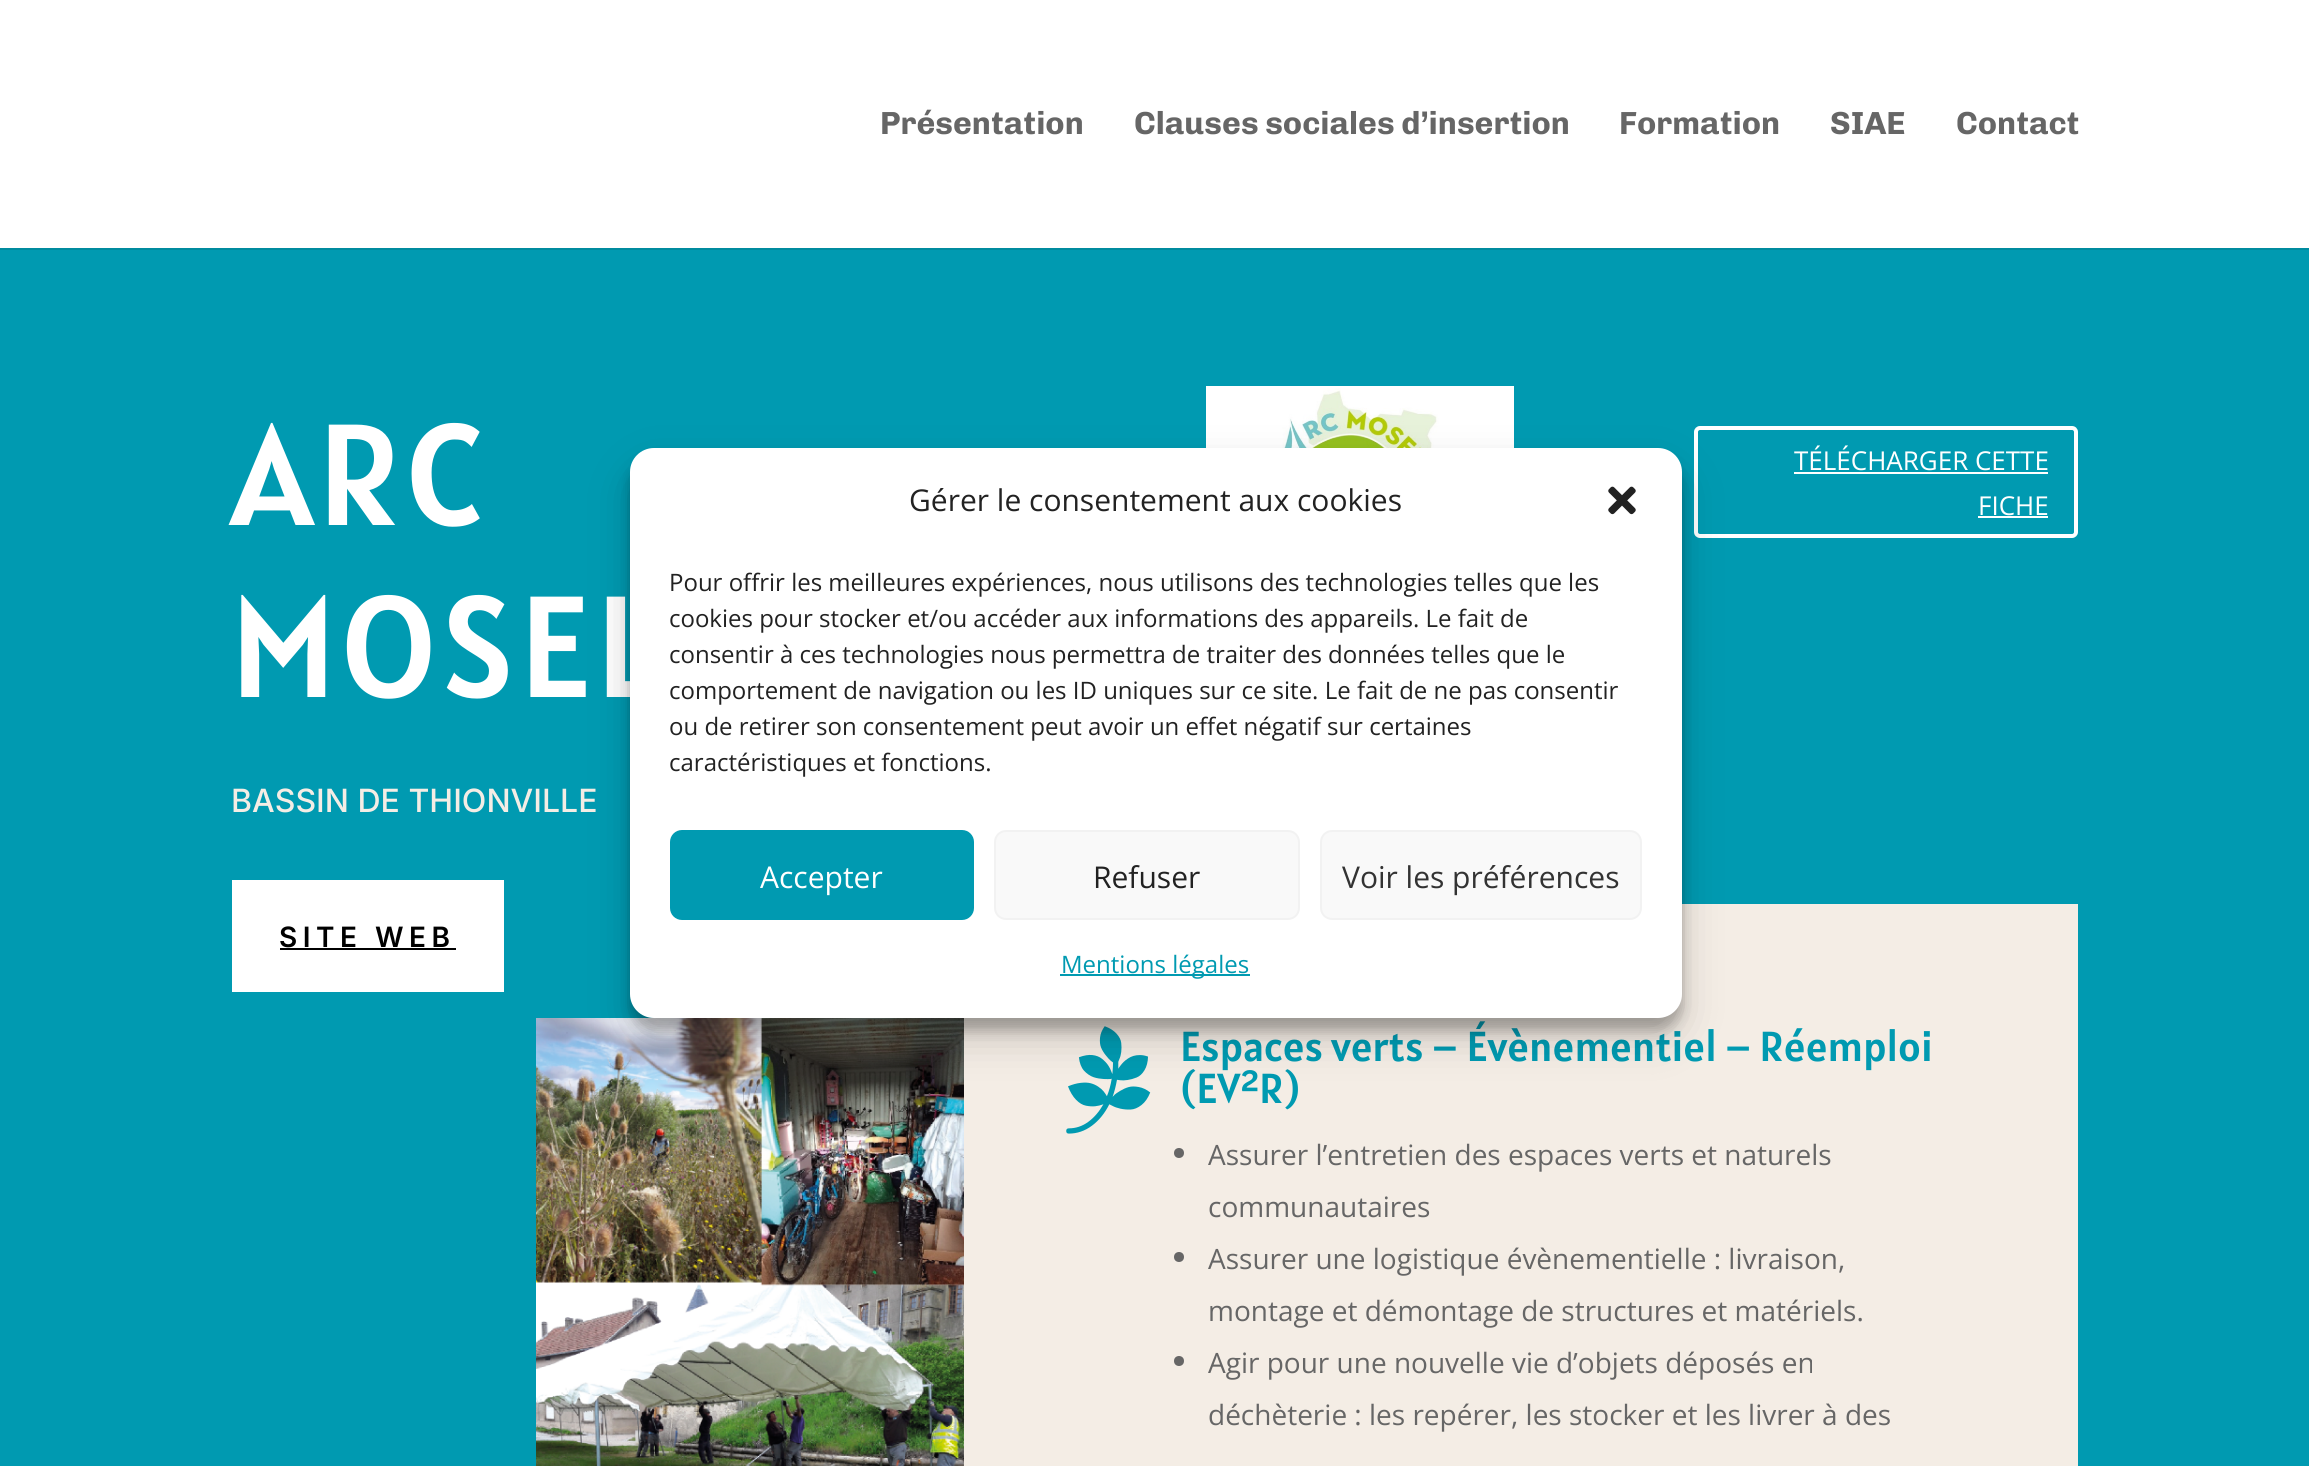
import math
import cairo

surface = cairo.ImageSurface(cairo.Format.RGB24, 2309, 1466)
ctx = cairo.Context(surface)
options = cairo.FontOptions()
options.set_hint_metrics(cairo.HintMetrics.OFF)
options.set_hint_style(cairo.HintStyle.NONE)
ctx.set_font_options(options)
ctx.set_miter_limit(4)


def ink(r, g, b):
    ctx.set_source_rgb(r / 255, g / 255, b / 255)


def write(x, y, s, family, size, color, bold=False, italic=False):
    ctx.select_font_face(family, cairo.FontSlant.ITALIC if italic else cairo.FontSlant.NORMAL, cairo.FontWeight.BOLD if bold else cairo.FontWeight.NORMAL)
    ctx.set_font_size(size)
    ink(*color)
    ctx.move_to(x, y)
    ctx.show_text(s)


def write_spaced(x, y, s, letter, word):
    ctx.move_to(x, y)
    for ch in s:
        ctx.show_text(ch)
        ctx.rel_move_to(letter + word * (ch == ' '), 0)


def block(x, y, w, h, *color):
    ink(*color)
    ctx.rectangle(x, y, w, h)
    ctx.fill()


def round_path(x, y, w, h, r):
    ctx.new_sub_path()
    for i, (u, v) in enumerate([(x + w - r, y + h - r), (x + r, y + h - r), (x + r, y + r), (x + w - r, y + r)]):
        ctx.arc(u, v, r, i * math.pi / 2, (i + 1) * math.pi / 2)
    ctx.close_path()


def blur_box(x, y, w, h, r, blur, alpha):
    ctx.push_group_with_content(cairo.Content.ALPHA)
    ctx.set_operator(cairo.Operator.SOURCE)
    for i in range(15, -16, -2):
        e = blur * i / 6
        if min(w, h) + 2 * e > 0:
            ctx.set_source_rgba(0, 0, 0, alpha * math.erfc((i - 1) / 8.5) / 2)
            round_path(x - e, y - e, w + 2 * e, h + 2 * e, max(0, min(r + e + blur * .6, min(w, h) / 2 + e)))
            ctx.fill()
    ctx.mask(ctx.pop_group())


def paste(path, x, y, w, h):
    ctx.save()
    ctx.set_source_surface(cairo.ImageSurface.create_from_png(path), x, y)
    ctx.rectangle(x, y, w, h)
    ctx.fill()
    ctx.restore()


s1 = dict(family="Chivo", size=32, color=(102, 102, 102), bold=True)
s2 = dict(family="Inter Medium", size=32, color=(244, 237, 229))
s3 = dict(family="Open Sans", size=26, color=(255, 255, 255))
s4 = dict(family="Alatsi", size=42, color=(0, 154, 177))
s5 = dict(family="Open Sans", size=28, color=(102, 102, 102))
s6 = dict(family="Open Sans", size=30, color=(34, 34, 34))
s7 = dict(family="Open Sans", size=24, color=(34, 34, 34))
s8 = dict(family="Open Sans", size=30, color=(255, 255, 255))
s9 = dict(family="Open Sans", size=30, color=(51, 51, 51))
s10 = dict(family="Open Sans", size=24, color=(0, 154, 177))

ink(0, 154, 177)
ctx.paint()
block(0, 248, 2309, 2, 0, 139, 159)
block(0, 0, 2309, 248, 255, 255, 255)
write(880, 134, "Présentation", **s1)
write(1134, 134, "Clauses sociales d’insertion", **s1)
write(1619, 134, "Formation", **s1)
write(1830, 134, "SIAE", **s1)
write(1956, 134, "Contact", **s1)
ctx.select_font_face("Alatsi")
ctx.set_font_size(144)
ink(255, 255, 255)
write_spaced(231, 525, "ARC", 5.75, 0)
write_spaced(231, 697, "MOSEL", 5.75, 0)
write(231, 812, "BASSIN DE THIONVILLE", **s2)
block(232, 880, 272, 112, 255, 255, 255)
ctx.select_font_face("Inter SemiBold")
ctx.set_font_size(28)
ink(0, 0, 0)
write_spaced(279, 947, "SITE WEB", 5.5, 0)
block(280, 948, 176, 2, 0, 0, 0)
paste("pic1.png", 1206, 386, 308, 62)
round_path(1696, 428, 380, 108, 4)
ink(255, 255, 255)
ctx.set_line_width(4)
ctx.stroke()
write(1794, 470, "TÉLÉCHARGER CETTE", **s3)
block(1794, 472, 254, 2, 255, 255, 255)
write(1978, 515, "FICHE", **s3)
block(1978, 516, 70, 2, 255, 255, 255)
paste("pic2.png", 536, 1018, 428, 448)
block(964, 904, 1114, 562, 244, 237, 229)
paste("pic3.png", 1066, 1026, 85, 108)
write(1180, 1061, "Espaces verts – Évènementiel – Réemploi", **s4)
write(1180, 1103, "(EV²R)", **s4)
ink(102, 102, 102)
ctx.new_path()
ctx.arc(1179, 1153, 5, 0, 2 * math.pi)
ctx.fill()
write(1208, 1165, "Assurer l’entretien des espaces verts et naturels", **s5)
write(1208, 1217, "communautaires", **s5)
ctx.new_path()
ctx.arc(1179, 1257, 5, 0, 2 * math.pi)
ctx.fill()
write(1208, 1269, "Assurer une logistique évènementielle : livraison,", **s5)
write(1208, 1321, "montage et démontage de structures et matériels.", **s5)
ctx.new_path()
ctx.arc(1179, 1361, 5, 0, 2 * math.pi)
ctx.fill()
write(1208, 1373, "Agir pour une nouvelle vie d’objets déposés en", **s5)
write(1208, 1425, "déchèterie : les repérer, les stocker et les livrer à des", **s5)
ink(0, 0, 0)
blur_box(630, 460, 1052, 570, 24, 6, 0.23)
blur_box(630, 468, 1052, 570, 24, 20, 0.19)
ink(255, 255, 255)
round_path(630, 448, 1052, 570, 24)
ctx.fill()
write(909, 511, "Gérer le consentement aux cookies", **s6)
paste("pic4.png", 1608, 486, 28, 29)
write(669, 591, "Pour offrir les meilleures expériences, nous utilisons des technologies telles que les", **s7)
write(669, 627, "cookies pour stocker et/ou accéder aux informations des appareils. Le fait de", **s7)
write(669, 663, "consentir à ces technologies nous permettra de traiter des données telles que le", **s7)
write(669, 699, "comportement de navigation ou les ID uniques sur ce site. Le fait de ne pas consentir", **s7)
write(669, 735, "ou de retirer son consentement peut avoir un effet négatif sur certaines", **s7)
write(669, 771, "caractéristiques et fonctions.", **s7)
ink(0, 154, 177)
round_path(671, 831, 302, 88, 11)
ctx.fill_preserve()
ctx.set_line_width(2)
ctx.stroke()
write(760, 888, "Accepter", **s8)
ink(249, 249, 249)
round_path(995, 831, 304, 88, 11)
ctx.fill_preserve()
ink(242, 242, 242)
ctx.stroke()
write(1093, 888, "Refuser", **s6)
ink(249, 249, 249)
round_path(1321, 831, 320, 88, 11)
ctx.fill_preserve()
ink(242, 242, 242)
ctx.stroke()
write(1342, 888, "Voir les préférences", **s9)
block(1060, 974, 190, 2, 0, 154, 177)
write(1061, 973, "Mentions légales", **s10)
surface.write_to_png("screenshot.png")
